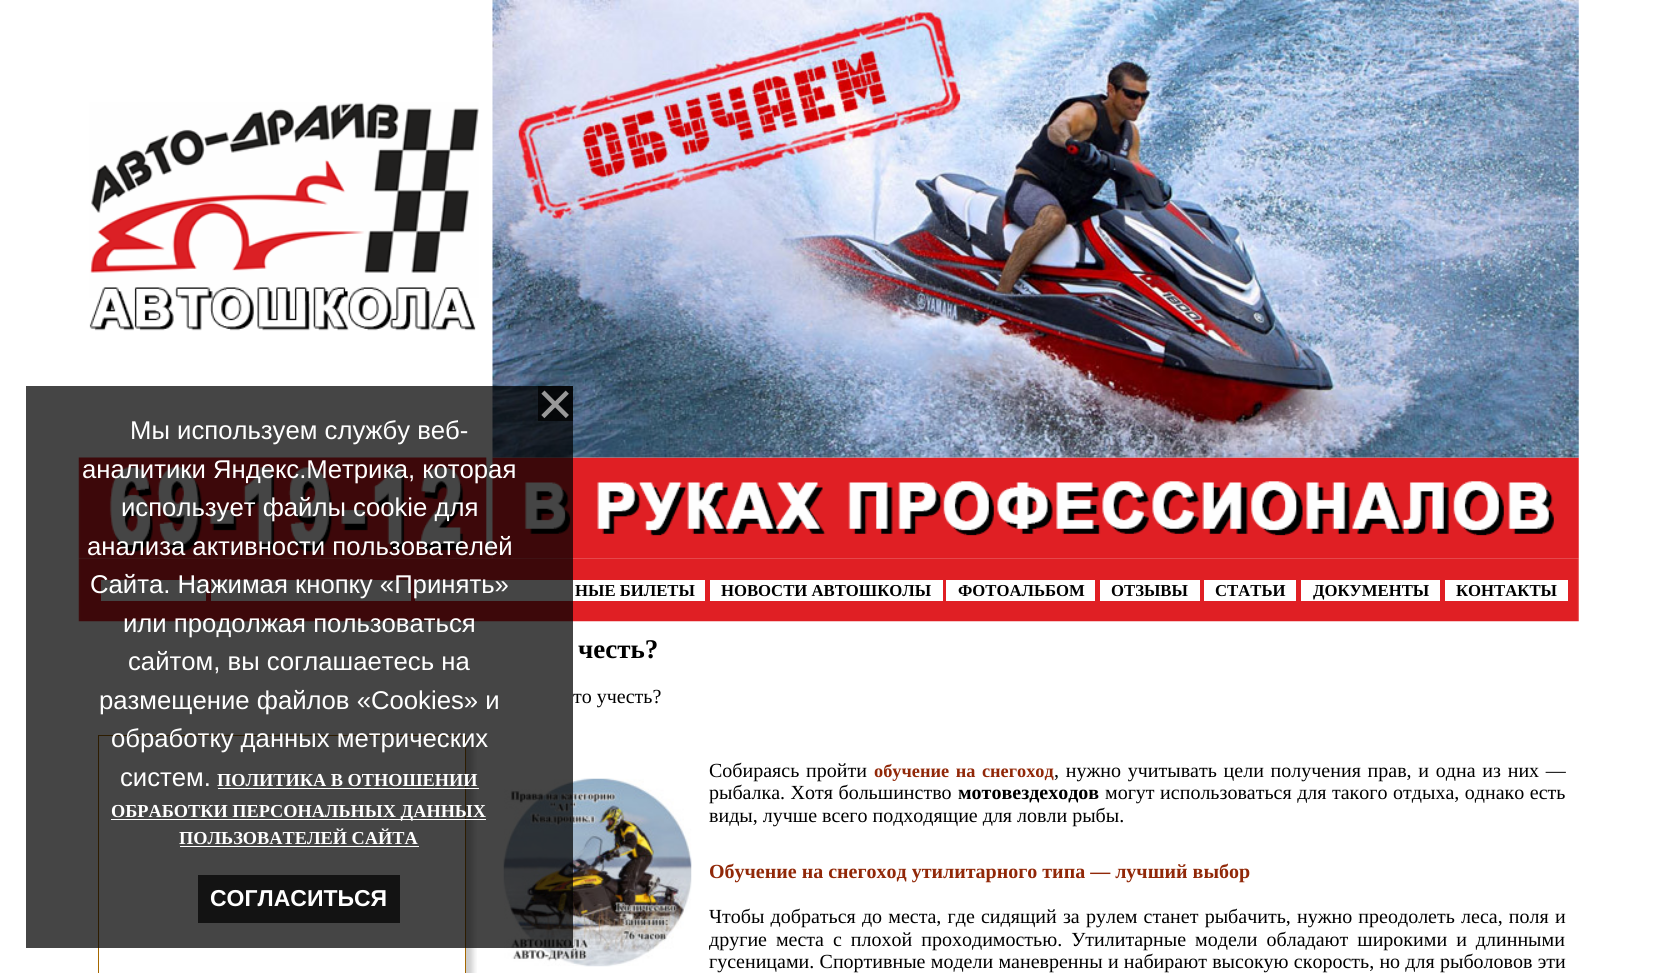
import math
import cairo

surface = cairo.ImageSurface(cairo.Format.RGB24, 1656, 973)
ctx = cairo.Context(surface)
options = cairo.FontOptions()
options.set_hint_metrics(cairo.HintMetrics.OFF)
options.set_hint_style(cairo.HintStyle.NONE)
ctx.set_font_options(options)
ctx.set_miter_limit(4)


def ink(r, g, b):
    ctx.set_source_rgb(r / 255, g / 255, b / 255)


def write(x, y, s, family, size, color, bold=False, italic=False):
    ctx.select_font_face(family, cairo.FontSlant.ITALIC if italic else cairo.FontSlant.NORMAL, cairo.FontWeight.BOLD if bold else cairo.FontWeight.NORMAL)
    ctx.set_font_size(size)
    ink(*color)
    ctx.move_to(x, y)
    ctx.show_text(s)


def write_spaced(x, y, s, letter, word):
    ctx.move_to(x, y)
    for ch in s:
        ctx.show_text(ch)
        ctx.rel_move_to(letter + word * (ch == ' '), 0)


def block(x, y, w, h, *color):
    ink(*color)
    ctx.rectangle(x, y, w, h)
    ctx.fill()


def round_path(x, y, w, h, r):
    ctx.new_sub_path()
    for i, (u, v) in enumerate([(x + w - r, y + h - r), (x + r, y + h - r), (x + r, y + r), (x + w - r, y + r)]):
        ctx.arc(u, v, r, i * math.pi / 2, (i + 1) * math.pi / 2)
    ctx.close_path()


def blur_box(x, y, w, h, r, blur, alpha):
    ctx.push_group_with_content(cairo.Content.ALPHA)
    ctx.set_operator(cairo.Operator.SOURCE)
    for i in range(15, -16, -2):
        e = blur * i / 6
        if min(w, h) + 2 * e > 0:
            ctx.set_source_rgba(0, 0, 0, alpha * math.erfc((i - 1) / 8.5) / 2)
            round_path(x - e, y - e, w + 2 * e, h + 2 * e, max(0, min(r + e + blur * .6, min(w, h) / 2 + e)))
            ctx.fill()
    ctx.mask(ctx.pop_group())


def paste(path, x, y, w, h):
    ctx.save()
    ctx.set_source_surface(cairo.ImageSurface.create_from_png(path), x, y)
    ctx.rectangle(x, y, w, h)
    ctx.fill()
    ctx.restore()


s1 = dict(family="Liberation Sans", size=62, color=(153, 153, 153))
s2 = dict(family="Liberation Sans", size=23, color=(255, 255, 255), bold=True)
s3 = dict(family="Liberation Sans", size=25.7, color=(255, 255, 255))
s4 = dict(family="Liberation Serif", size=18.3, color=(255, 255, 255), bold=True)
s5 = dict(family="Liberation Serif", size=16.7, color=(0, 0, 0), bold=True)
s6 = dict(family="Liberation Serif", size=27, color=(0, 0, 0), bold=True)
s7 = dict(family="Liberation Serif", size=20, color=(0, 0, 0))
s8 = dict(family="Liberation Serif", size=20, color=(0, 0, 0), bold=True)
s9 = dict(family="Liberation Serif", size=20, color=(145, 40, 8), bold=True)

ink(255, 255, 255)
ctx.paint()
paste("pic3.png", 78, 457, 415, 102)
paste("pic4.png", 492, 457, 1087, 102)
paste("pic2.png", 492, 0, 1087, 458)
paste("pic5.png", 78, 558, 1501, 64)
block(101, 580, 105, 21, 255, 255, 255)
block(211, 580, 200, 21, 255, 255, 255)
block(415, 580, 290, 21, 255, 255, 255)
ctx.save()
ctx.rectangle(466, 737, 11, 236)
ctx.clip()
ink(0, 0, 0)
blur_box(104, 741, 369, 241, 0, 3, 0.2)
ctx.restore()
ctx.rectangle(98.5, 735.5, 367, 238)
ink(166, 104, 0)
ctx.set_line_width(1)
ctx.stroke()
paste("pic6.png", 503, 778, 189, 189)
ctx.set_source_rgba(0, 0, 0, 0.73)
ctx.rectangle(26, 386, 547, 562)
ctx.fill()
ctx.rectangle(538, 386, 35, 35)
ctx.fill()
write(537, 425, "×", **s1)
ctx.set_source_rgba(0, 0, 0, 0.73)
ctx.rectangle(198, 875, 202, 48)
ctx.fill()
write(210, 906, "СОГЛАСИТЬСЯ", **s2)
write(130, 439, "Мы используем службу веб-", **s3)
write(82, 478, "аналитики Яндекс.Метрика, которая", **s3)
write(121, 516, "использует файлы cookie для", **s3)
write(87, 555, "анализа активности пользователей", **s3)
write(90, 593, "Сайта. Нажимая кнопку «Принять»", **s3)
write(123, 632, "или продолжая пользоваться", **s3)
write(128, 670, "сайтом, вы соглашаетесь на", **s3)
write(99, 709, "размещение файлов «Cookies» и", **s3)
write(111, 747, "обработку данных метрических", **s3)
write(120, 786, "систем.", **s3)
write(217, 786, "ПОЛИТИКА В ОТНОШЕНИИ", **s4)
block(218, 788, 261, 1, 255, 255, 255)
block(111, 819, 375, 1, 255, 255, 255)
write(111, 817, "ОБРАБОТКИ ПЕРСОНАЛЬНЫХ ДАННЫХ", **s4)
write(179, 844, "ПОЛЬЗОВАТЕЛЕЙ САЙТА", **s4)
block(180, 846, 239, 1, 255, 255, 255)
paste("pic1.png", 89, 102, 390, 229)
write(575, 596, "НЫЕ БИЛЕТЫ", **s5)
block(710, 580, 233, 21, 255, 255, 255)
write(721, 596, "НОВОСТИ АВТОШКОЛЫ", **s5)
block(946, 580, 149, 21, 255, 255, 255)
write(958, 596, "ФОТОАЛЬБОМ", **s5)
block(1100, 580, 100, 21, 255, 255, 255)
write(1111, 596, "ОТЗЫВЫ", **s5)
block(1204, 580, 92, 21, 255, 255, 255)
write(1215, 596, "СТАТЬИ", **s5)
block(1301, 580, 139, 21, 255, 255, 255)
write(1313, 596, "ДОКУМЕНТЫ", **s5)
block(1445, 580, 123, 21, 255, 255, 255)
write(1456, 596, "КОНТАКТЫ", **s5)
write(578, 658, "честь?", **s6)
write(573, 703, "то учесть?", **s7)
write_spaced(709, 777, "Собираясь пройти", 0, 1.75)
ctx.select_font_face("Liberation Serif", cairo.FontSlant.NORMAL, cairo.FontWeight.BOLD)
ctx.set_font_size(18.3)
ink(145, 40, 8)
write_spaced(874, 777, "обучение на снегоход", 0, 2)
ctx.select_font_face("Liberation Serif")
ctx.set_font_size(20)
ink(0, 0, 0)
write_spaced(1054, 777, ", нужно учитывать цели получения прав, и одна из них —", 0, 1.75)
write_spaced(709, 799, "рыбалка. Хотя большинство", 0, 0.5)
write(958, 799, "мотовездеходов", **s8)
ctx.select_font_face("Liberation Serif")
write_spaced(1105, 799, "могут использоваться для такого отдыха, однако есть", 0, 0.5)
write(709, 822, "виды, лучше всего подходящие для ловли рыбы.", **s7)
write(709, 878, "Обучение на снегоход утилитарного типа — лучший выбор", **s9)
ctx.select_font_face("Liberation Serif")
ink(0, 0, 0)
write_spaced(709, 923, "Чтобы добраться до места, где сидящий за рулем станет рыбачить, нужно преодолеть леса, поля и", 0, 1.2)
write_spaced(709, 946, "другие места с плохой проходимостью. Утилитарные модели обладают широкими и длинными", 0, 4)
write_spaced(709, 968, "гусеницами. Спортивные модели маневренны и набирают высокую скорость, но для рыболовов эти", 0, 0.25)
surface.write_to_png("screenshot.png")
